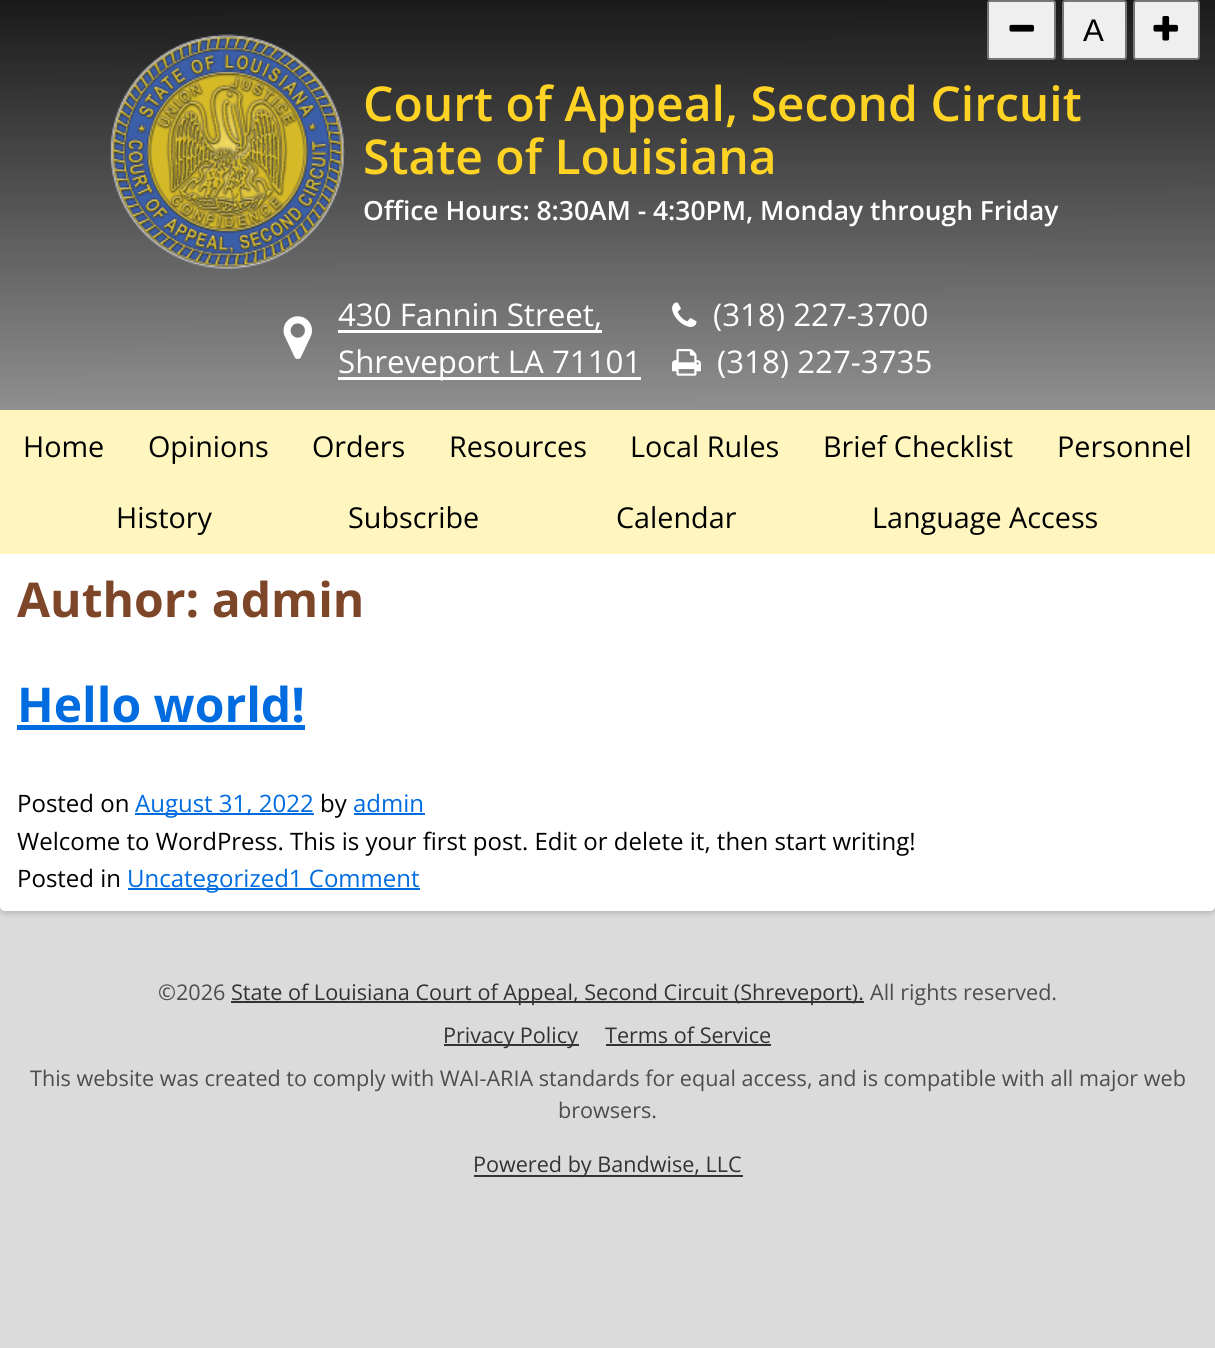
import math
import cairo

surface = cairo.ImageSurface(cairo.Format.RGB24, 1215, 1348)
ctx = cairo.Context(surface)
options = cairo.FontOptions()
options.set_hint_metrics(cairo.HintMetrics.OFF)
options.set_hint_style(cairo.HintStyle.NONE)
ctx.set_font_options(options)
ctx.set_miter_limit(4)


def ink(r, g, b):
    ctx.set_source_rgb(r / 255, g / 255, b / 255)


def write(x, y, s, family, size, color, bold=False, italic=False):
    ctx.select_font_face(family, cairo.FontSlant.ITALIC if italic else cairo.FontSlant.NORMAL, cairo.FontWeight.BOLD if bold else cairo.FontWeight.NORMAL)
    ctx.set_font_size(size)
    ink(*color)
    ctx.move_to(x, y)
    ctx.show_text(s)


def block(x, y, w, h, *color):
    ink(*color)
    ctx.rectangle(x, y, w, h)
    ctx.fill()


def round_path(x, y, w, h, r):
    ctx.new_sub_path()
    for i, (u, v) in enumerate([(x + w - r, y + h - r), (x + r, y + h - r), (x + r, y + r), (x + w - r, y + r)]):
        ctx.arc(u, v, r, i * math.pi / 2, (i + 1) * math.pi / 2)
    ctx.close_path()


def blur_box(x, y, w, h, r, blur, alpha):
    ctx.push_group_with_content(cairo.Content.ALPHA)
    ctx.set_operator(cairo.Operator.SOURCE)
    for i in range(15, -16, -2):
        e = blur * i / 6
        if min(w, h) + 2 * e > 0:
            ctx.set_source_rgba(0, 0, 0, alpha * math.erfc((i - 1) / 8.5) / 2)
            round_path(x - e, y - e, w + 2 * e, h + 2 * e, max(0, min(r + e + blur * .6, min(w, h) / 2 + e)))
            ctx.fill()
    ctx.mask(ctx.pop_group())


def paste(path, x, y, w, h):
    ctx.save()
    ctx.set_source_surface(cairo.ImageSurface.create_from_png(path), x, y)
    ctx.rectangle(x, y, w, h)
    ctx.fill()
    ctx.restore()


s1 = dict(family="Liberation Sans", size=31.25, color=(0, 0, 0))
s2 = dict(family="Open Sans SemiBold", size=48, color=(255, 211, 36))
s3 = dict(family="Open Sans SemiBold", size=26.4, color=(255, 255, 255))
s4 = dict(family="Open Sans", size=31.25, color=(255, 255, 255))
s5 = dict(family="Open Sans", size=28.75, color=(0, 0, 0))
s6 = dict(family="Open Sans", size=48, color=(125, 70, 40), bold=True)
s7 = dict(family="Open Sans", size=48, color=(0, 108, 223), bold=True)
s8 = dict(family="Open Sans", size=24, color=(0, 0, 0))
s9 = dict(family="Open Sans", size=24, color=(0, 108, 223))
s10 = dict(family="Open Sans", size=21.6, color=(77, 77, 77))
s11 = dict(family="Open Sans", size=21.6, color=(51, 51, 51))

ink(255, 255, 255)
ctx.paint()
gradient = cairo.LinearGradient(607, 0, 608, 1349)
gradient.add_color_stop_rgba(0, 0.102, 0.102, 0.102, 1)
gradient.add_color_stop_rgba(0.5, 0.859, 0.859, 0.859, 1)
ctx.set_source(gradient)
ctx.rectangle(0, 0, 1215, 1348)
ctx.fill()
ink(239, 239, 239)
round_path(988, 1, 67, 58, 2)
ctx.fill_preserve()
ink(118, 118, 118)
ctx.stroke()
paste("pic1.png", 1009, 24, 25, 8)
ink(239, 239, 239)
round_path(1063, 1, 63, 58, 2)
ctx.fill_preserve()
ink(118, 118, 118)
ctx.stroke()
write(1083, 41, "A", **s1)
ink(239, 239, 239)
round_path(1134, 1, 65, 58, 2)
ctx.fill_preserve()
ink(118, 118, 118)
ctx.stroke()
paste("pic2.png", 1153, 16, 25, 25)
paste("pic3.png", 110, 34, 235, 235)
write(363, 121, "Court of Appeal, Second Circuit", **s2)
write(363, 174, "State of Louisiana", **s2)
write(363, 220, "Office Hours: 8:30AM - 4:30PM, Monday through Friday", **s3)
paste("pic4.png", 283, 316, 29, 43)
write(338, 326, "430 Fannin Street,", **s4)
block(338, 330, 264, 3, 255, 255, 255)
block(338, 377, 303, 3, 255, 255, 255)
write(338, 373, "Shreveport LA 71101", **s4)
paste("pic5.png", 672, 302, 25, 25)
write(713, 326, "(318) 227-3700", **s4)
paste("pic6.png", 672, 349, 29, 27)
write(717, 373, "(318) 227-3735", **s4)
ink(0, 0, 0)
blur_box(0, 554, 1215, 357, 5, 4, 0.3)
block(0, 410, 1215, 144, 255, 246, 191)
write(23, 457, "Home", **s5)
write(148, 457, "Opinions", **s5)
write(312, 457, "Orders", **s5)
write(449, 457, "Resources", **s5)
write(630, 457, "Local Rules", **s5)
write(823, 457, "Brief Checklist", **s5)
write(1057, 457, "Personnel", **s5)
write(116, 528, "History", **s5)
write(348, 528, "Subscribe", **s5)
write(616, 528, "Calendar", **s5)
write(872, 528, "Language Access", **s5)
ink(255, 255, 255)
ctx.new_path()
ctx.move_to(0, 554)
ctx.line_to(1215, 554)
ctx.line_to(1215, 906)
ctx.curve_to(1215, 909, 1213, 911, 1210, 911)
ctx.line_to(5, 911)
ctx.curve_to(2, 911, 0, 909, 0, 906)
ctx.close_path()
ctx.fill()
write(17, 617, "Author: admin", **s6)
write(17, 722, "Hello world!", **s7)
block(17, 725, 288, 5, 0, 108, 223)
write(17, 812, "Posted on", **s8)
block(135, 813, 179, 2, 0, 108, 223)
write(135, 812, "August 31, 2022", **s9)
write(320, 812, "by", **s8)
write(353, 812, "admin", **s9)
block(354, 813, 71, 2, 0, 108, 223)
write(17, 850, "Welcome to WordPress. This is your first post. Edit or delete it, then start writing!", **s8)
write(17, 887, "Posted in", **s8)
block(128, 888, 292, 2, 0, 108, 223)
write(127, 887, "Uncategorized1 Comment", **s9)
write(158, 1000, "©2026", **s10)
block(231, 1001, 633, 2, 51, 51, 51)
write(231, 1000, "State of Louisiana Court of Appeal, Second Circuit (Shreveport).", **s11)
write(870, 1000, "All rights reserved.", **s10)
block(444, 1044, 135, 2, 51, 51, 51)
write(443, 1043, "Privacy Policy", **s11)
write(605, 1043, "Terms of Service", **s11)
block(606, 1044, 165, 2, 51, 51, 51)
write(30, 1086, "This website was created to comply with WAI-ARIA standards for equal access, and is compatible with all major web", **s10)
write(558, 1118, "browsers.", **s10)
block(474, 1175, 269, 2, 51, 51, 51)
write(473, 1172, "Powered by Bandwise, LLC", **s11)
surface.write_to_png("screenshot.png")
